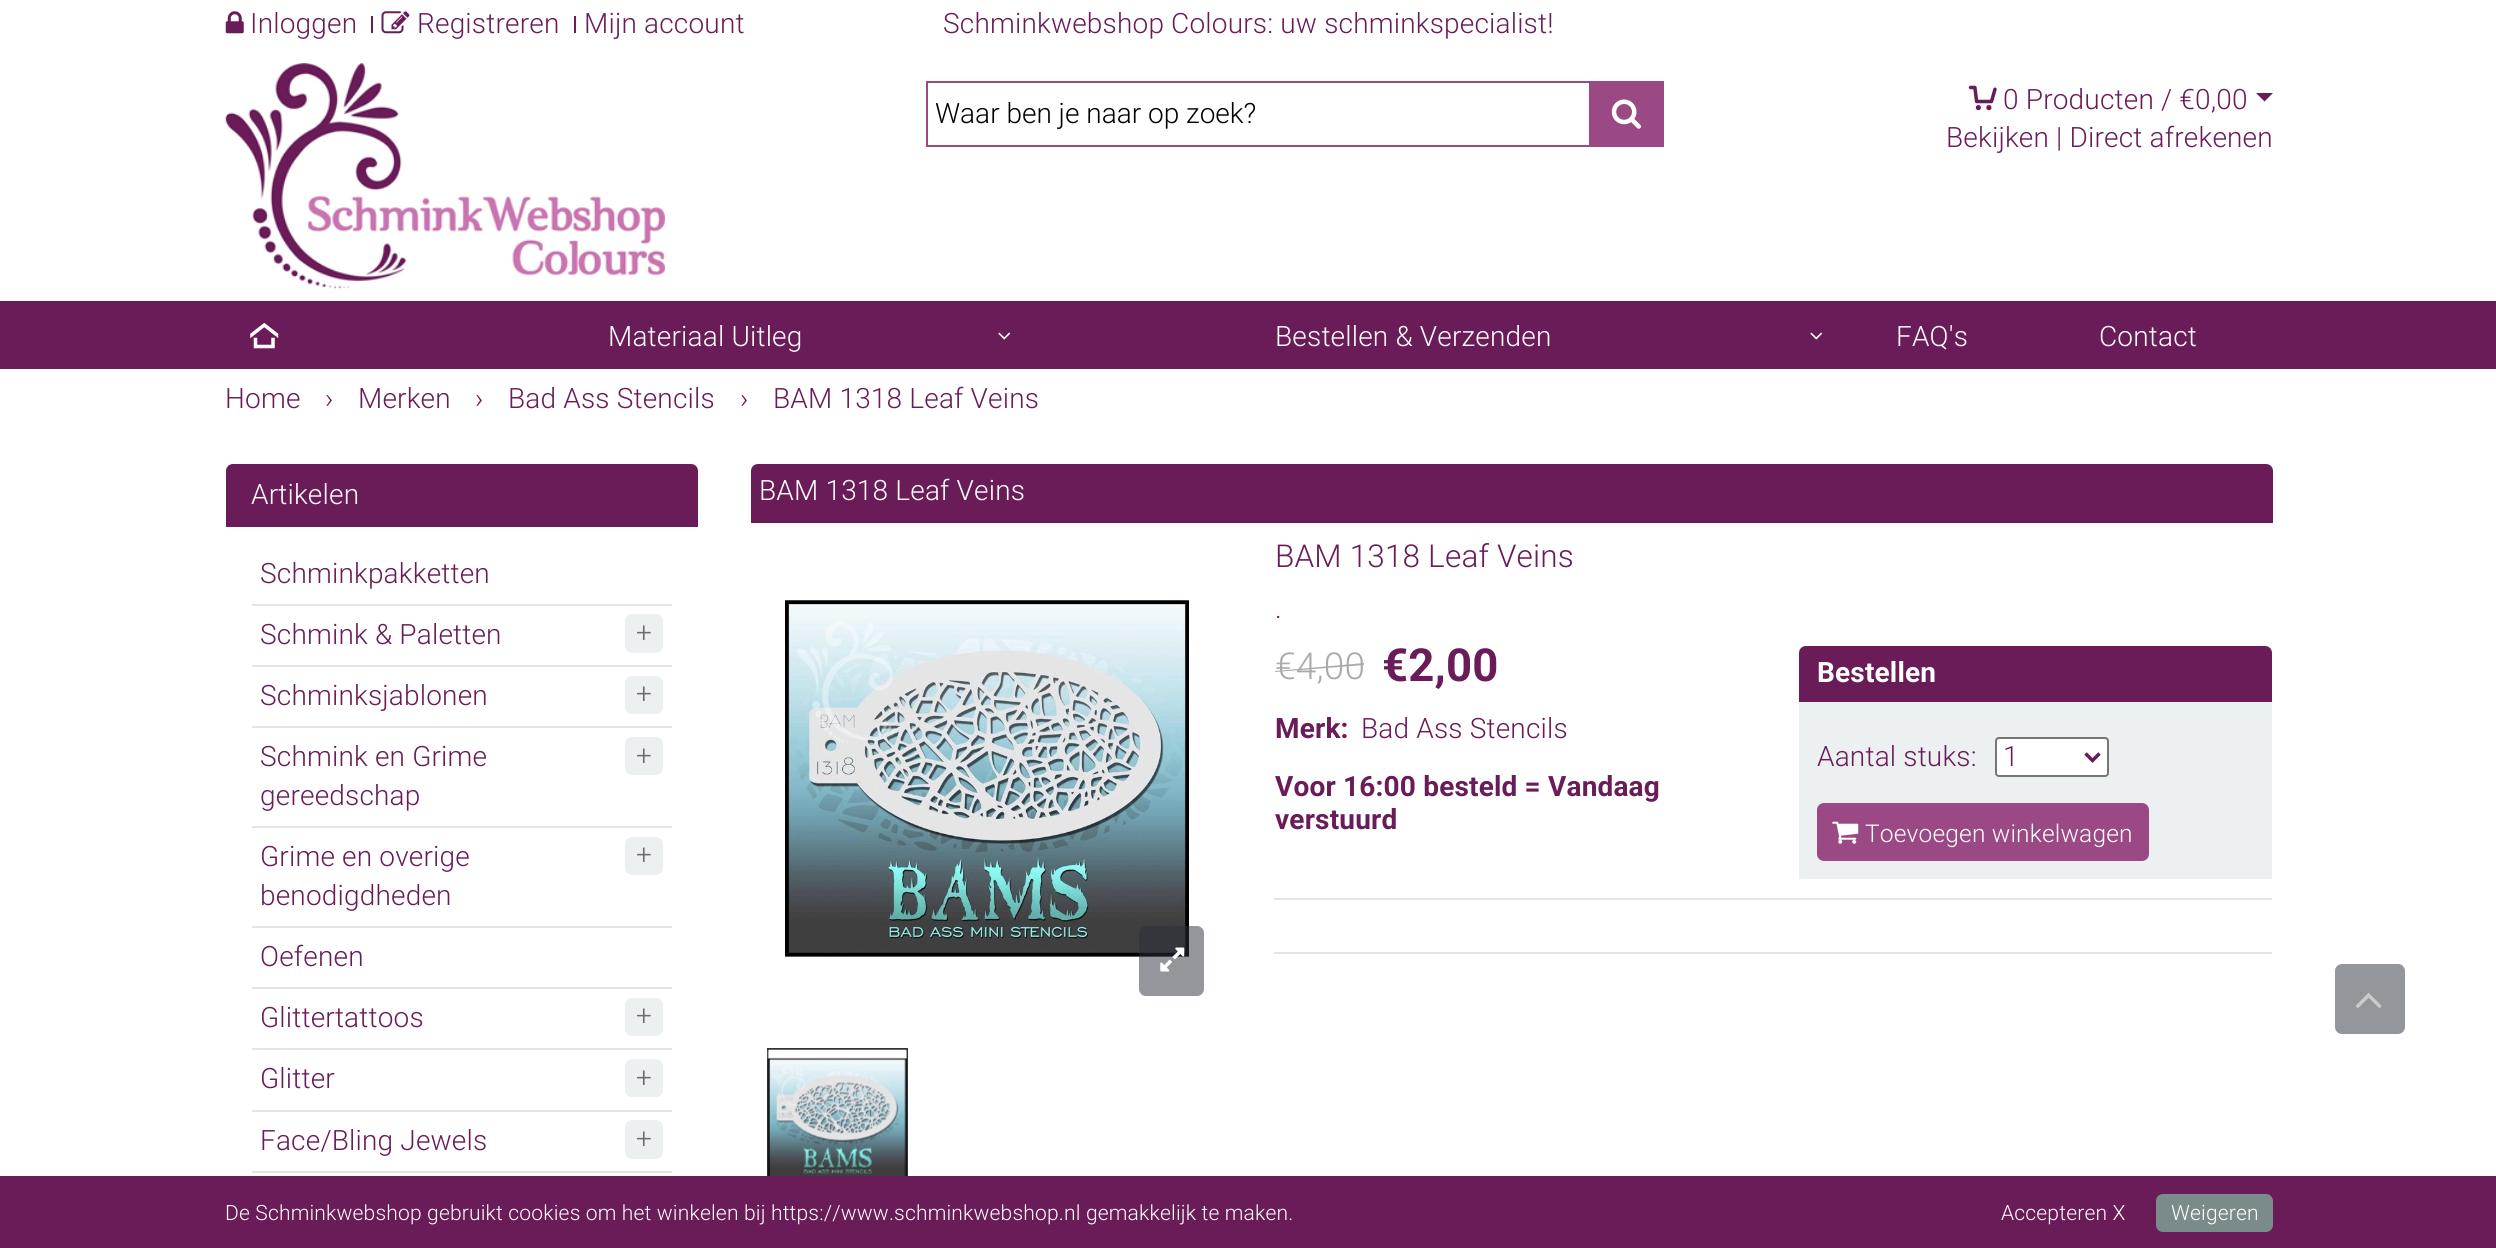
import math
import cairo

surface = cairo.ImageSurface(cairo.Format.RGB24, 2496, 1248)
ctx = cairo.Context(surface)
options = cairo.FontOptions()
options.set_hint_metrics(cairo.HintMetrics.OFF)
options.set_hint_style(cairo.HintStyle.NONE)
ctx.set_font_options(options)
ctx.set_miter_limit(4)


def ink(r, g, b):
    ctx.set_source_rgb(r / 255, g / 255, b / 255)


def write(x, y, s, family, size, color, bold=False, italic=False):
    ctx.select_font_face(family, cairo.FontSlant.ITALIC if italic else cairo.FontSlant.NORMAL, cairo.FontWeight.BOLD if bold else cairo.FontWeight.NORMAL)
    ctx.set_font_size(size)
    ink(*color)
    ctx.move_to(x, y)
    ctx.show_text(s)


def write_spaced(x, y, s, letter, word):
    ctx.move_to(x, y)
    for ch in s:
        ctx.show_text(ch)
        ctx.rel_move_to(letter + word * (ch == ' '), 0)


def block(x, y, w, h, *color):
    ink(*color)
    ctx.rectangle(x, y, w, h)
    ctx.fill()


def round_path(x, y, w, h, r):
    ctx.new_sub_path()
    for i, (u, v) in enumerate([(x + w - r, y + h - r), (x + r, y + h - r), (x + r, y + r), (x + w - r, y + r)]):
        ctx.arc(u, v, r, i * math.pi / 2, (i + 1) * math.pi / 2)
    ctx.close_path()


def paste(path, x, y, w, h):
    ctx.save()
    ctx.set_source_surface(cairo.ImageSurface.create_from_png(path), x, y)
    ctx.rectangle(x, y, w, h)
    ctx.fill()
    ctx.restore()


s1 = dict(family="Roboto Light", size=28, color=(0, 0, 0))
s2 = dict(family="Roboto Light", size=28, color=(106, 28, 88))

ink(255, 255, 255)
ctx.paint()
paste("pic1.png", 225, 11, 19, 23)
ctx.select_font_face("Roboto Light")
ctx.set_font_size(28)
ink(106, 28, 88)
write_spaced(250, 33, "Inloggen", 0.18, 0)
block(371, 16, 2, 17, 106, 28, 88)
paste("pic2.png", 381, 11, 29, 23)
write_spaced(417, 33, "Registreren", 0.18, 0)
block(574, 16, 2, 17, 106, 28, 88)
write_spaced(584, 33, "Mijn account", 0.18, 0)
write_spaced(943, 33, "Schminkwebshop Colours: uw schminkspecialist!", 0.18, 0)
paste("pic3.png", 225, 63, 440, 226)
ctx.rectangle(927, 82, 663, 64)
ink(154, 73, 132)
ctx.stroke()
write(935, 123, "Waar ben je naar op zoek?", **s1)
block(1591, 81, 73, 66, 154, 73, 132)
paste("pic4.png", 1611, 99, 30, 30)
paste("pic5.png", 1968, 85, 29, 26)
ink(106, 28, 88)
write_spaced(2003, 109, "0 Producten / €0,00", 0.18, 0)
ctx.new_path()
ctx.move_to(2256, 93)
ctx.line_to(2273, 93)
ctx.line_to(2264.5, 101.5)
ctx.close_path()
ctx.fill()
write_spaced(1946, 147, "Bekijken | Direct afrekenen", 0.18, 0)
block(0, 301, 2496, 68, 106, 28, 88)
paste("pic6.png", 250, 322, 29, 27)
ink(255, 255, 255)
write_spaced(608, 346, "Materiaal Uitleg", 0.18, 0)
paste("pic7.png", 998, 332, 13, 8)
write_spaced(1275, 346, "Bestellen & Verzenden", 0.18, 0)
paste("pic7.png", 1810, 332, 13, 8)
write_spaced(1896, 346, "FAQ's", 0.18, 0)
write_spaced(2099, 346, "Contact", 0.18, 0)
ink(106, 28, 88)
write_spaced(225, 408, "Home", 0.18, 0)
write_spaced(325, 408, "›", 0.18, 0)
write_spaced(358, 408, "Merken", 0.18, 0)
write_spaced(475, 408, "›", 0.18, 0)
write_spaced(508, 408, "Bad Ass Stencils", 0.18, 0)
write_spaced(740, 408, "›", 0.18, 0)
write_spaced(773, 408, "BAM 1318 Leaf Veins", 0.18, 0)
ctx.new_path()
ctx.move_to(233, 464)
ctx.line_to(691, 464)
ctx.curve_to(695, 464, 698, 467, 698, 471)
ctx.line_to(698, 527)
ctx.line_to(226, 527)
ctx.line_to(226, 471)
ctx.curve_to(226, 467, 229, 464, 233, 464)
ctx.close_path()
ctx.fill()
ink(255, 255, 255)
write_spaced(251, 504, "Artikelen", 0.18, 0)
block(252, 604, 420, 2, 228, 228, 226)
ink(106, 28, 88)
write_spaced(260, 583, "Schminkpakketten", 0.18, 0)
block(252, 665, 420, 2, 228, 228, 226)
ink(106, 28, 88)
write_spaced(260, 644, "Schmink & Paletten", 0.18, 0)
ink(236, 240, 241)
round_path(625, 614, 38, 39, 7)
ctx.fill()
ink(105, 110, 110)
write_spaced(636, 642, "+", 0.18, 0)
block(252, 726, 420, 2, 228, 228, 226)
ink(106, 28, 88)
write_spaced(260, 705, "Schminksjablonen", 0.18, 0)
ink(236, 240, 241)
round_path(625, 676, 38, 38, 7)
ctx.fill()
ink(105, 110, 110)
write_spaced(636, 703, "+", 0.18, 0)
block(252, 826, 420, 2, 228, 228, 226)
ink(106, 28, 88)
write_spaced(260, 766, "Schmink en Grime", 0.18, 0)
write_spaced(260, 805, "gereedschap", 0.18, 0)
ink(236, 240, 241)
round_path(625, 737, 38, 38, 7)
ctx.fill()
ink(105, 110, 110)
write_spaced(636, 765, "+", 0.18, 0)
block(252, 926, 420, 2, 228, 228, 226)
ink(106, 28, 88)
write_spaced(260, 866, "Grime en overige", 0.18, 0)
write_spaced(260, 905, "benodigdheden", 0.18, 0)
ink(236, 240, 241)
round_path(625, 837, 38, 38, 7)
ctx.fill()
ink(105, 110, 110)
write_spaced(636, 864, "+", 0.18, 0)
block(252, 987, 420, 2, 228, 228, 226)
ink(106, 28, 88)
write_spaced(260, 966, "Oefenen", 0.18, 0)
block(252, 1048, 420, 2, 228, 228, 226)
ink(106, 28, 88)
write_spaced(260, 1027, "Glittertattoos", 0.18, 0)
ink(236, 240, 241)
round_path(625, 998, 38, 38, 7)
ctx.fill()
ink(105, 110, 110)
write_spaced(636, 1025, "+", 0.18, 0)
block(252, 1110, 420, 2, 228, 228, 226)
ink(106, 28, 88)
write_spaced(260, 1088, "Glitter", 0.18, 0)
ink(236, 240, 241)
round_path(625, 1059, 38, 38, 7)
ctx.fill()
ink(105, 110, 110)
write_spaced(636, 1087, "+", 0.18, 0)
block(252, 1171, 420, 2, 228, 228, 226)
ink(106, 28, 88)
write_spaced(260, 1150, "Face/Bling Jewels", 0.18, 0)
ink(236, 240, 241)
round_path(625, 1120, 38, 39, 7)
ctx.fill()
ink(105, 110, 110)
write_spaced(636, 1148, "+", 0.18, 0)
ink(106, 28, 88)
ctx.new_path()
ctx.move_to(758, 464)
ctx.line_to(2266, 464)
ctx.curve_to(2270, 464, 2273, 467, 2273, 471)
ctx.line_to(2273, 523)
ctx.line_to(751, 523)
ctx.line_to(751, 471)
ctx.curve_to(751, 467, 754, 464, 758, 464)
ctx.close_path()
ctx.fill()
ink(255, 255, 255)
write_spaced(759, 500, "BAM 1318 Leaf Veins", 0.18, 0)
paste("pic8.png", 785, 600, 404, 357)
ctx.set_source_rgba(0.161, 0.184, 0.22, 0.5)
round_path(1139, 926, 65, 70, 7)
ctx.fill()
paste("pic9.png", 1160, 947, 25, 25)
ctx.rectangle(768, 1049, 139, 140)
ink(51, 51, 51)
ctx.stroke()
paste("pic10.png", 767, 1049, 140, 127)
ctx.set_font_size(31.5)
ink(106, 28, 88)
write_spaced(1275, 567, "BAM 1318 Leaf Veins", 0.18, 0)
ctx.set_font_size(28)
write_spaced(1275, 618, ".", 0.18, 0)
ctx.set_font_size(37)
ink(170, 170, 170)
write_spaced(1275, 679, "€4,00", 0.18, 0)
ctx.new_path()
ctx.move_to(1275, 671)
ctx.line_to(1364, 663)
ctx.line_to(1364, 665)
ctx.line_to(1275, 672)
ctx.close_path()
ctx.fill()
ctx.select_font_face("Roboto", cairo.FontSlant.NORMAL, cairo.FontWeight.BOLD)
ctx.set_font_size(45.5)
ink(106, 28, 88)
write_spaced(1382, 681, "€2,00", 0.18, 0)
ctx.set_font_size(28)
write_spaced(1275, 738, "Merk:", 0.18, 0)
ctx.select_font_face("Roboto Light")
write_spaced(1361, 738, "Bad Ass Stencils", 0.18, 0)
ctx.select_font_face("Roboto", cairo.FontSlant.NORMAL, cairo.FontWeight.BOLD)
write_spaced(1275, 796, "Voor 16:00 besteld = Vandaag", 0.18, 0)
write_spaced(1275, 829, "verstuurd", 0.18, 0)
ctx.new_path()
ctx.move_to(1806, 646)
ctx.line_to(2265, 646)
ctx.curve_to(2269, 646, 2272, 649, 2272, 653)
ctx.line_to(2272, 702)
ctx.line_to(1799, 702)
ctx.line_to(1799, 653)
ctx.curve_to(1799, 649, 1802, 646, 1806, 646)
ctx.close_path()
ctx.fill()
ink(255, 255, 255)
write_spaced(1817, 682, "Bestellen", 0.18, 0)
block(1799, 702, 473, 177, 236, 240, 241)
ctx.select_font_face("Roboto Light")
ink(106, 28, 88)
write_spaced(1817, 766, "Aantal stuks:", 0.18, 0)
ink(255, 255, 255)
round_path(1996, 738, 112, 38, 3)
ctx.fill_preserve()
ink(118, 118, 118)
ctx.stroke()
ctx.new_path()
ctx.move_to(2085.5, 753.5)
ctx.line_to(2092.5, 760.5)
ctx.line_to(2099.5, 753.5)
ink(106, 28, 88)
ctx.set_line_width(3.5)
ctx.stroke()
write(2003, 766, "1", **s2)
ink(154, 73, 132)
round_path(1817, 803, 332, 58, 7)
ctx.fill()
paste("pic11.png", 1832, 821, 27, 23)
ctx.set_font_size(24.5)
ink(255, 255, 255)
write_spaced(1865, 842, "Toevoegen winkelwagen", 0.18, 0)
block(1274, 898, 998, 2, 228, 228, 226)
block(1274, 952, 998, 2, 228, 228, 226)
ink(147, 150, 154)
round_path(2335, 964, 70, 70, 7)
ctx.fill()
paste("pic12.png", 2355, 993, 27, 15)
block(0, 1176, 2496, 72, 106, 28, 88)
ctx.set_font_size(21)
ink(255, 255, 255)
write_spaced(225, 1220, "De Schminkwebshop gebruikt cookies om het winkelen bij https://www.schminkwebshop.nl gemakkelijk te maken.", 0.18, 0)
write_spaced(2001, 1220, "Accepteren X", 0.18, 0)
ink(123, 138, 139)
round_path(2156, 1194, 117, 38, 7)
ctx.fill()
ink(255, 255, 255)
write_spaced(2171, 1220, "Weigeren", 0.18, 0)
surface.write_to_png("screenshot.png")
